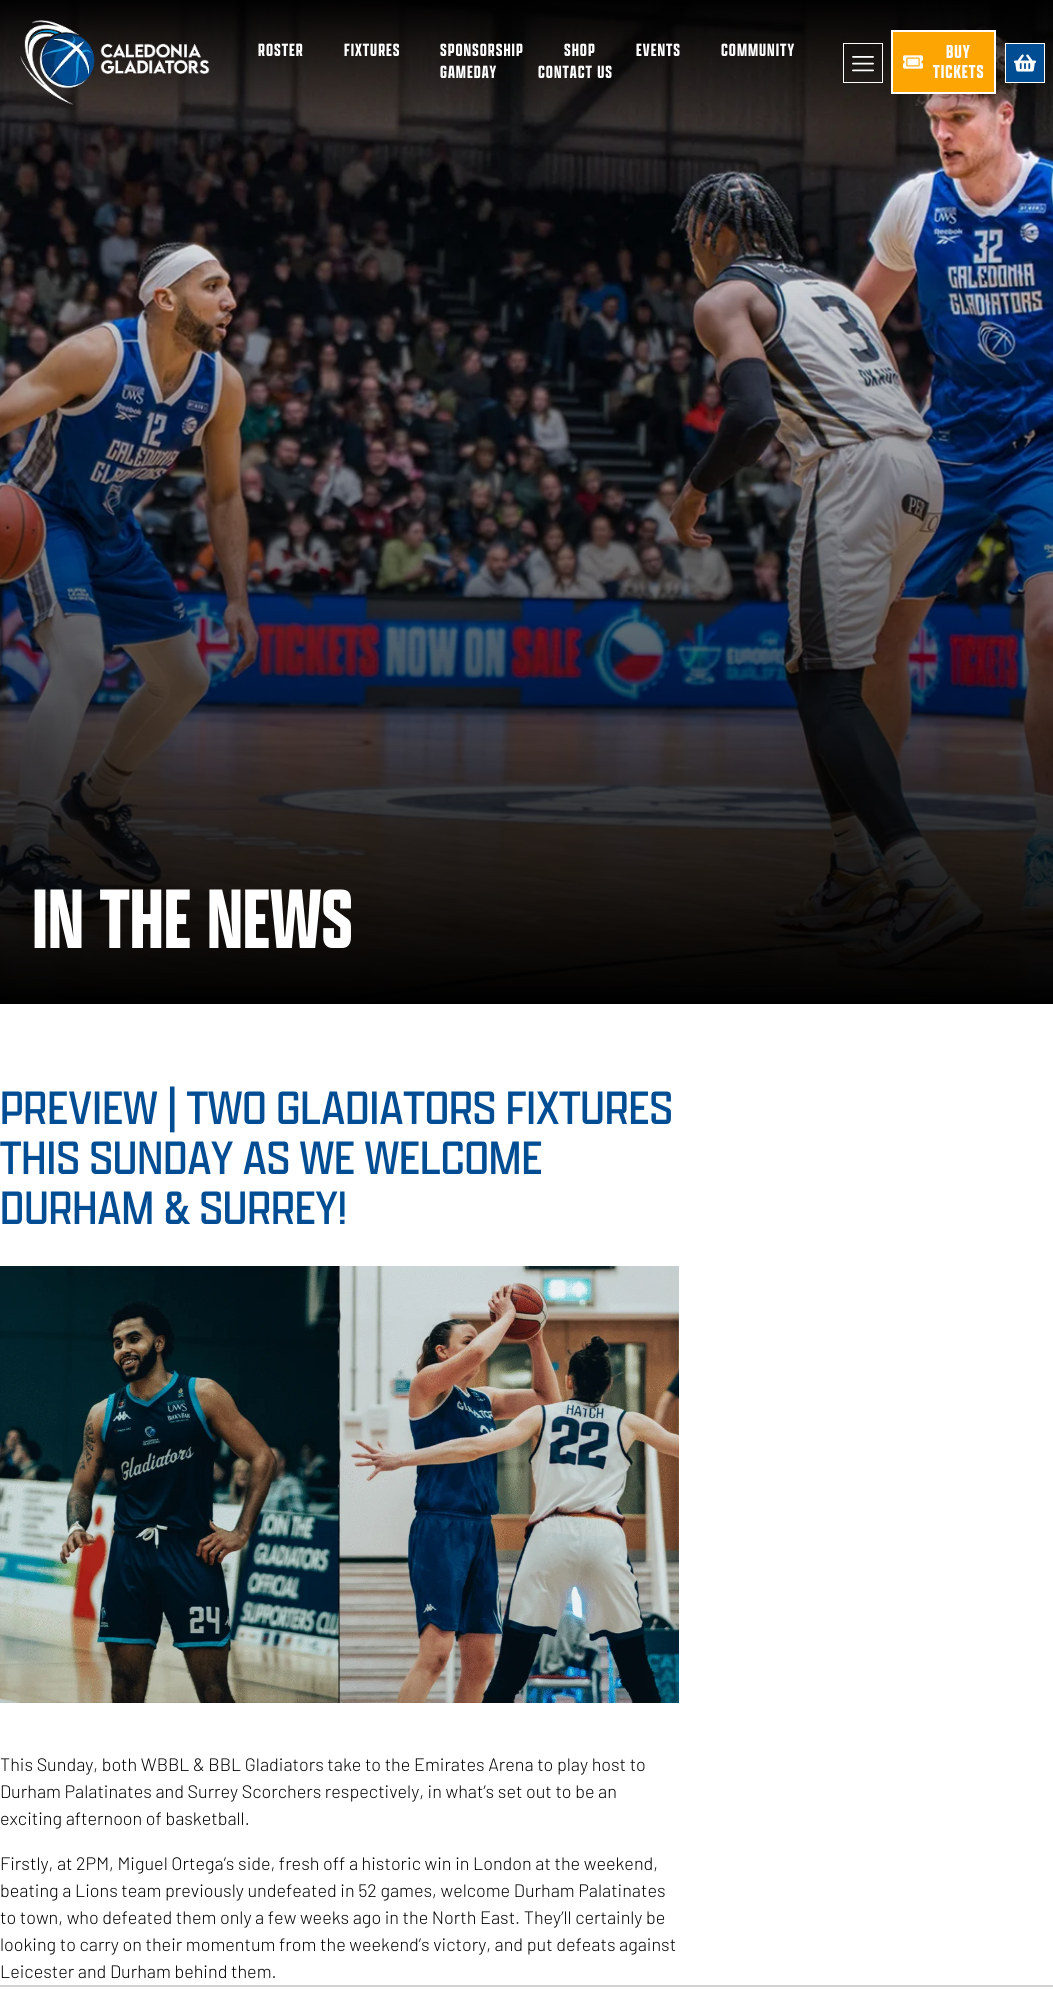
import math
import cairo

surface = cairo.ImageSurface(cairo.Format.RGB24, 1053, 2007)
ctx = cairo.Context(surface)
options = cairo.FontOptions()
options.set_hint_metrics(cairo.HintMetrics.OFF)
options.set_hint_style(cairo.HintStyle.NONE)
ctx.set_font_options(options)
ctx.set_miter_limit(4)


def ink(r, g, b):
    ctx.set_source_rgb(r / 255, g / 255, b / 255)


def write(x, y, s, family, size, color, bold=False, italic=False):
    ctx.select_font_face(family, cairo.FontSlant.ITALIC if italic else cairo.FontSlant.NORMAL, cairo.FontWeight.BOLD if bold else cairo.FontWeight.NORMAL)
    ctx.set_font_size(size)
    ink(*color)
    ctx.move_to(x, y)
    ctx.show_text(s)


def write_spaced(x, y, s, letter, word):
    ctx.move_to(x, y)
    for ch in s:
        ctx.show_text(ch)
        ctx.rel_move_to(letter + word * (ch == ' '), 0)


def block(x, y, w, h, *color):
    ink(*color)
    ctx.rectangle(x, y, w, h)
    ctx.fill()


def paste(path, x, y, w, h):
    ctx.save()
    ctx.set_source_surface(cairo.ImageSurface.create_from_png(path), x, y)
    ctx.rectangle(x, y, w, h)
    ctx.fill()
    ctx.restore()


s1 = dict(family="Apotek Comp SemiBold", size=90, color=(255, 255, 255))
s2 = dict(family="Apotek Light", size=50, color=(0, 77, 148))
s3 = dict(family="Barlow Light", size=18, color=(0, 0, 0))

ink(255, 255, 255)
ctx.paint()
paste("pic5.png", 0, 0, 1053, 1004)
paste("pic1.png", 20, 20, 190, 85)
ctx.select_font_face("Apotek Comp SemiBold")
ctx.set_font_size(19)
ink(255, 255, 255)
write_spaced(258, 56, "ROSTER", 1, 0)
write_spaced(344, 56, "FIXTURES", 1, 0)
write_spaced(440, 56, "SPONSORSHIP", 1, 0)
write_spaced(564, 56, "SHOP", 1, 0)
write_spaced(636, 56, "EVENTS", 1, 0)
write_spaced(721, 56, "COMMUNITY", 1, 0)
write_spaced(440, 78, "GAMEDAY", 1, 0)
write_spaced(538, 78, "CONTACT US", 1, 0)
ctx.rectangle(843.5, 43.5, 39, 39)
ctx.set_line_width(1)
ctx.stroke()
paste("pic2.png", 852, 56, 22, 16)
ink(252, 165, 3)
ctx.rectangle(892, 31, 103, 62)
ctx.fill_preserve()
ink(255, 255, 255)
ctx.set_line_width(2)
ctx.stroke()
paste("pic3.png", 903, 55, 20, 14)
ctx.set_font_size(20)
write_spaced(946, 58, "BUY", 1, 0)
write_spaced(933, 78, "TICKETS", 1, 0)
ink(0, 77, 148)
ctx.rectangle(1005.5, 43.5, 39, 39)
ctx.fill_preserve()
ink(255, 255, 255)
ctx.set_line_width(1)
ctx.stroke()
paste("pic4.png", 1014, 54, 22, 18)
write(32, 948, "IN THE NEWS", **s1)
write(0, 1124, "PREVIEW | TWO GLADIATORS FIXTURES", **s2)
write(0, 1174, "THIS SUNDAY AS WE WELCOME", **s2)
write(0, 1224, "DURHAM & SURREY!", **s2)
paste("pic6.png", 0, 1266, 679, 437)
write(0, 1771, "This Sunday, both WBBL & BBL Gladiators take to the Emirates Arena to play host to", **s3)
write(0, 1798, "Durham Palatinates and Surrey Scorchers respectively, in what’s set out to be an", **s3)
write(0, 1825, "exciting afternoon of basketball.", **s3)
write(0, 1870, "Firstly, at 2PM, Miguel Ortega’s side, fresh off a historic win in London at the weekend,", **s3)
write(0, 1897, "beating a Lions team previously undefeated in 52 games, welcome Durham Palatinates", **s3)
write(0, 1924, "to town, who defeated them only a few weeks ago in the North East. They’ll certainly be", **s3)
write(0, 1951, "looking to carry on their momentum from the weekend’s victory, and put defeats against", **s3)
write(0, 1978, "Leicester and Durham behind them.", **s3)
block(0, 1985, 1053, 2, 210, 210, 210)
surface.write_to_png("screenshot.png")
